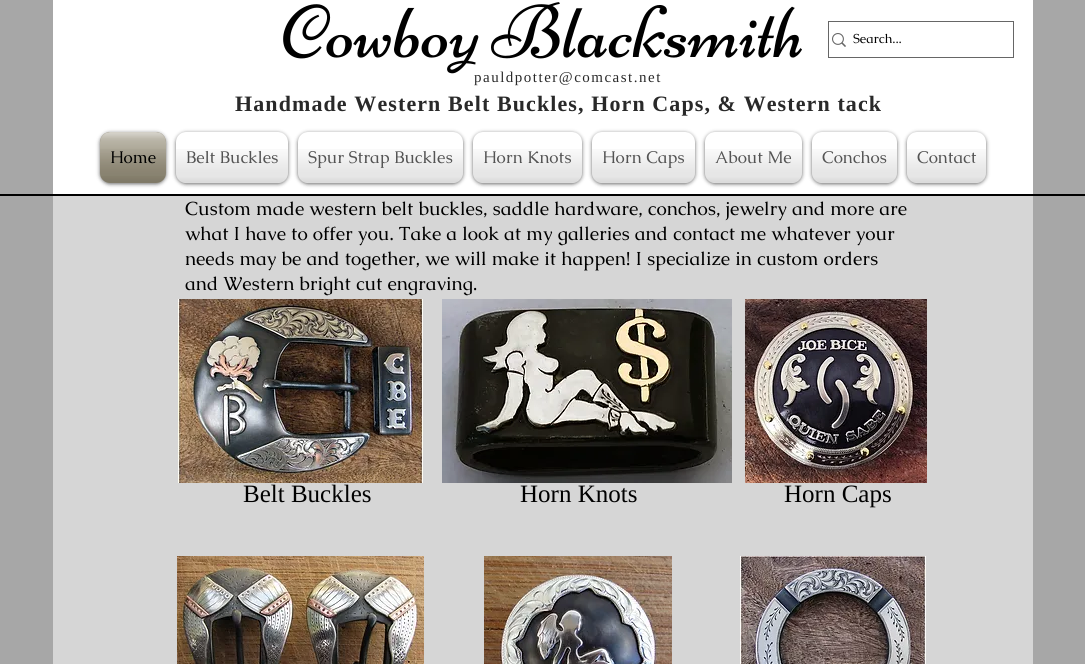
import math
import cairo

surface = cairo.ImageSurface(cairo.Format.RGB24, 1085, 664)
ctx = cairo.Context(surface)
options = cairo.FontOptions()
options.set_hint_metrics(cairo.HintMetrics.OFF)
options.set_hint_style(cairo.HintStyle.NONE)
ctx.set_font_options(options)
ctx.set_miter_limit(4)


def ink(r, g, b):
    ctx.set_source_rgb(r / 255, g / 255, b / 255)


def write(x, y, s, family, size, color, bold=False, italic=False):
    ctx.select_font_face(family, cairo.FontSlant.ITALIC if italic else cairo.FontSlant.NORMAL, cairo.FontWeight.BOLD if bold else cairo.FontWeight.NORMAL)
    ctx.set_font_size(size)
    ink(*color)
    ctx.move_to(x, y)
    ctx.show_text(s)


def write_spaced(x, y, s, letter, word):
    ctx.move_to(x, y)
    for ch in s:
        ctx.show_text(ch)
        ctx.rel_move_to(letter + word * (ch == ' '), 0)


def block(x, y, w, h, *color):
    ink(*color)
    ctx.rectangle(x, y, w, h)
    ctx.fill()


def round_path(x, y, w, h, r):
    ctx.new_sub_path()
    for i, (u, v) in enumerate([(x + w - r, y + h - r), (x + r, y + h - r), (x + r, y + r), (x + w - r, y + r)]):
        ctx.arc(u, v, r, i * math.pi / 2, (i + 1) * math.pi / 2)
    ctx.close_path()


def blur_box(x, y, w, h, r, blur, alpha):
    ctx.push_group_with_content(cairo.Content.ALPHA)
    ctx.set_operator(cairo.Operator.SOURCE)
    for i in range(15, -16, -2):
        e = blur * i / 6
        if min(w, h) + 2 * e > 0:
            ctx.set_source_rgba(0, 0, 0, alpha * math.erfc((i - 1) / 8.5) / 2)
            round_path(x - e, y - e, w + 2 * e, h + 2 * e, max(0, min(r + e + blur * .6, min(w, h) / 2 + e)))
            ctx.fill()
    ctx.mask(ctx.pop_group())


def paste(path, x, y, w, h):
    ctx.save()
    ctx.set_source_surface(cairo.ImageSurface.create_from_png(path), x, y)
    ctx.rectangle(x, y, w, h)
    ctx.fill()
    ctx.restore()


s1 = dict(family="Caudex", size=13, color=(0, 0, 0))
s2 = dict(family="Caudex", size=17, color=(0, 0, 0))
s3 = dict(family="Caudex", size=17, color=(84, 84, 84))
s4 = dict(family="Caudex", size=19, color=(0, 0, 0))
s5 = dict(family="Liberation Serif", size=25, color=(0, 0, 0))

ink(167, 167, 167)
ctx.paint()
block(53, 0, 980, 194, 255, 255, 255)
ctx.select_font_face("Liberation Serif")
ctx.set_font_size(15)
ink(41, 41, 41)
write_spaced(474, 82, "pauldpotter@comcast.net", 1.5, 0)
paste("pic1.png", 283, 2, 519, 72)
ctx.rectangle(828.5, 21.5, 185, 36)
ink(102, 102, 102)
ctx.set_line_width(1)
ctx.stroke()
paste("pic2.png", 832, 33, 14, 14)
write(853, 43, "Search...", **s1)
ctx.select_font_face("Liberation Serif", cairo.FontSlant.NORMAL, cairo.FontWeight.BOLD)
ctx.set_font_size(22)
ink(41, 41, 41)
write_spaced(235, 111, "Handmade Western Belt Buckles, Horn Caps, & Western tack", 1.1, 0)
ink(0, 0, 0)
blur_box(100, 133, 66, 51, 10, 2, 0.6)
ink(148, 141, 120)
round_path(100, 132, 66, 51, 10)
ctx.fill()
paste("pic3.png", 100, 132, 66, 44)
paste("pic4.png", 100, 149, 66, 34)
write(110, 163, "Home", **s2)
ink(0, 0, 0)
blur_box(176, 133, 112, 51, 10, 2, 0.6)
ink(255, 255, 255)
round_path(176, 132, 112, 51, 10)
ctx.fill()
paste("pic5.png", 176, 149, 112, 34)
write(186, 163, "Belt Buckles", **s3)
ink(0, 0, 0)
blur_box(298, 133, 165, 51, 10, 2, 0.6)
ink(255, 255, 255)
round_path(298, 132, 165, 51, 10)
ctx.fill()
paste("pic6.png", 298, 149, 165, 34)
write(308, 163, "Spur Strap Buckles", **s3)
ink(0, 0, 0)
blur_box(473, 133, 109, 51, 10, 2, 0.6)
ink(255, 255, 255)
round_path(473, 132, 109, 51, 10)
ctx.fill()
paste("pic7.png", 473, 149, 109, 34)
write(483, 163, "Horn Knots", **s3)
ink(0, 0, 0)
blur_box(592, 133, 103, 51, 10, 2, 0.6)
ink(255, 255, 255)
round_path(592, 132, 103, 51, 10)
ctx.fill()
paste("pic8.png", 592, 149, 103, 34)
write(602, 163, "Horn Caps", **s3)
ink(0, 0, 0)
blur_box(705, 133, 97, 51, 10, 2, 0.6)
ink(255, 255, 255)
round_path(705, 132, 97, 51, 10)
ctx.fill()
paste("pic9.png", 705, 149, 97, 34)
write(715, 163, "About Me", **s3)
ink(0, 0, 0)
blur_box(812, 133, 85, 51, 10, 2, 0.6)
ink(255, 255, 255)
round_path(812, 132, 85, 51, 10)
ctx.fill()
paste("pic10.png", 812, 149, 85, 34)
write(822, 163, "Conchos", **s3)
ink(0, 0, 0)
blur_box(907, 133, 79, 51, 10, 2, 0.6)
ink(255, 255, 255)
round_path(907, 132, 79, 51, 10)
ctx.fill()
paste("pic11.png", 907, 149, 79, 34)
write(917, 163, "Contact", **s3)
block(0, 194, 1085, 2, 0, 0, 0)
block(53, 196, 980, 468, 214, 214, 214)
write(185, 215, "Custom made western belt buckles, saddle hardware, conchos, jewelry and more are", **s4)
write(185, 240, "what I have to offer you. Take a look at my galleries and contact me whatever your", **s4)
write(185, 265, "needs may be and together, we will make it happen! I specialize in custom orders", **s4)
write(185, 290, "and Western bright cut engraving.", **s4)
paste("pic12.png", 178, 299, 245, 184)
paste("pic13.png", 442, 299, 290, 184)
paste("pic14.png", 745, 299, 182, 184)
write(243, 502, "Belt Buckles", **s5)
write(520, 502, "Horn Knots", **s5)
write(784, 502, "Horn Caps", **s5)
paste("pic15.png", 177, 556, 247, 108)
paste("pic16.png", 484, 556, 188, 108)
paste("pic17.png", 740, 556, 186, 108)
surface.write_to_png("screenshot.png")
